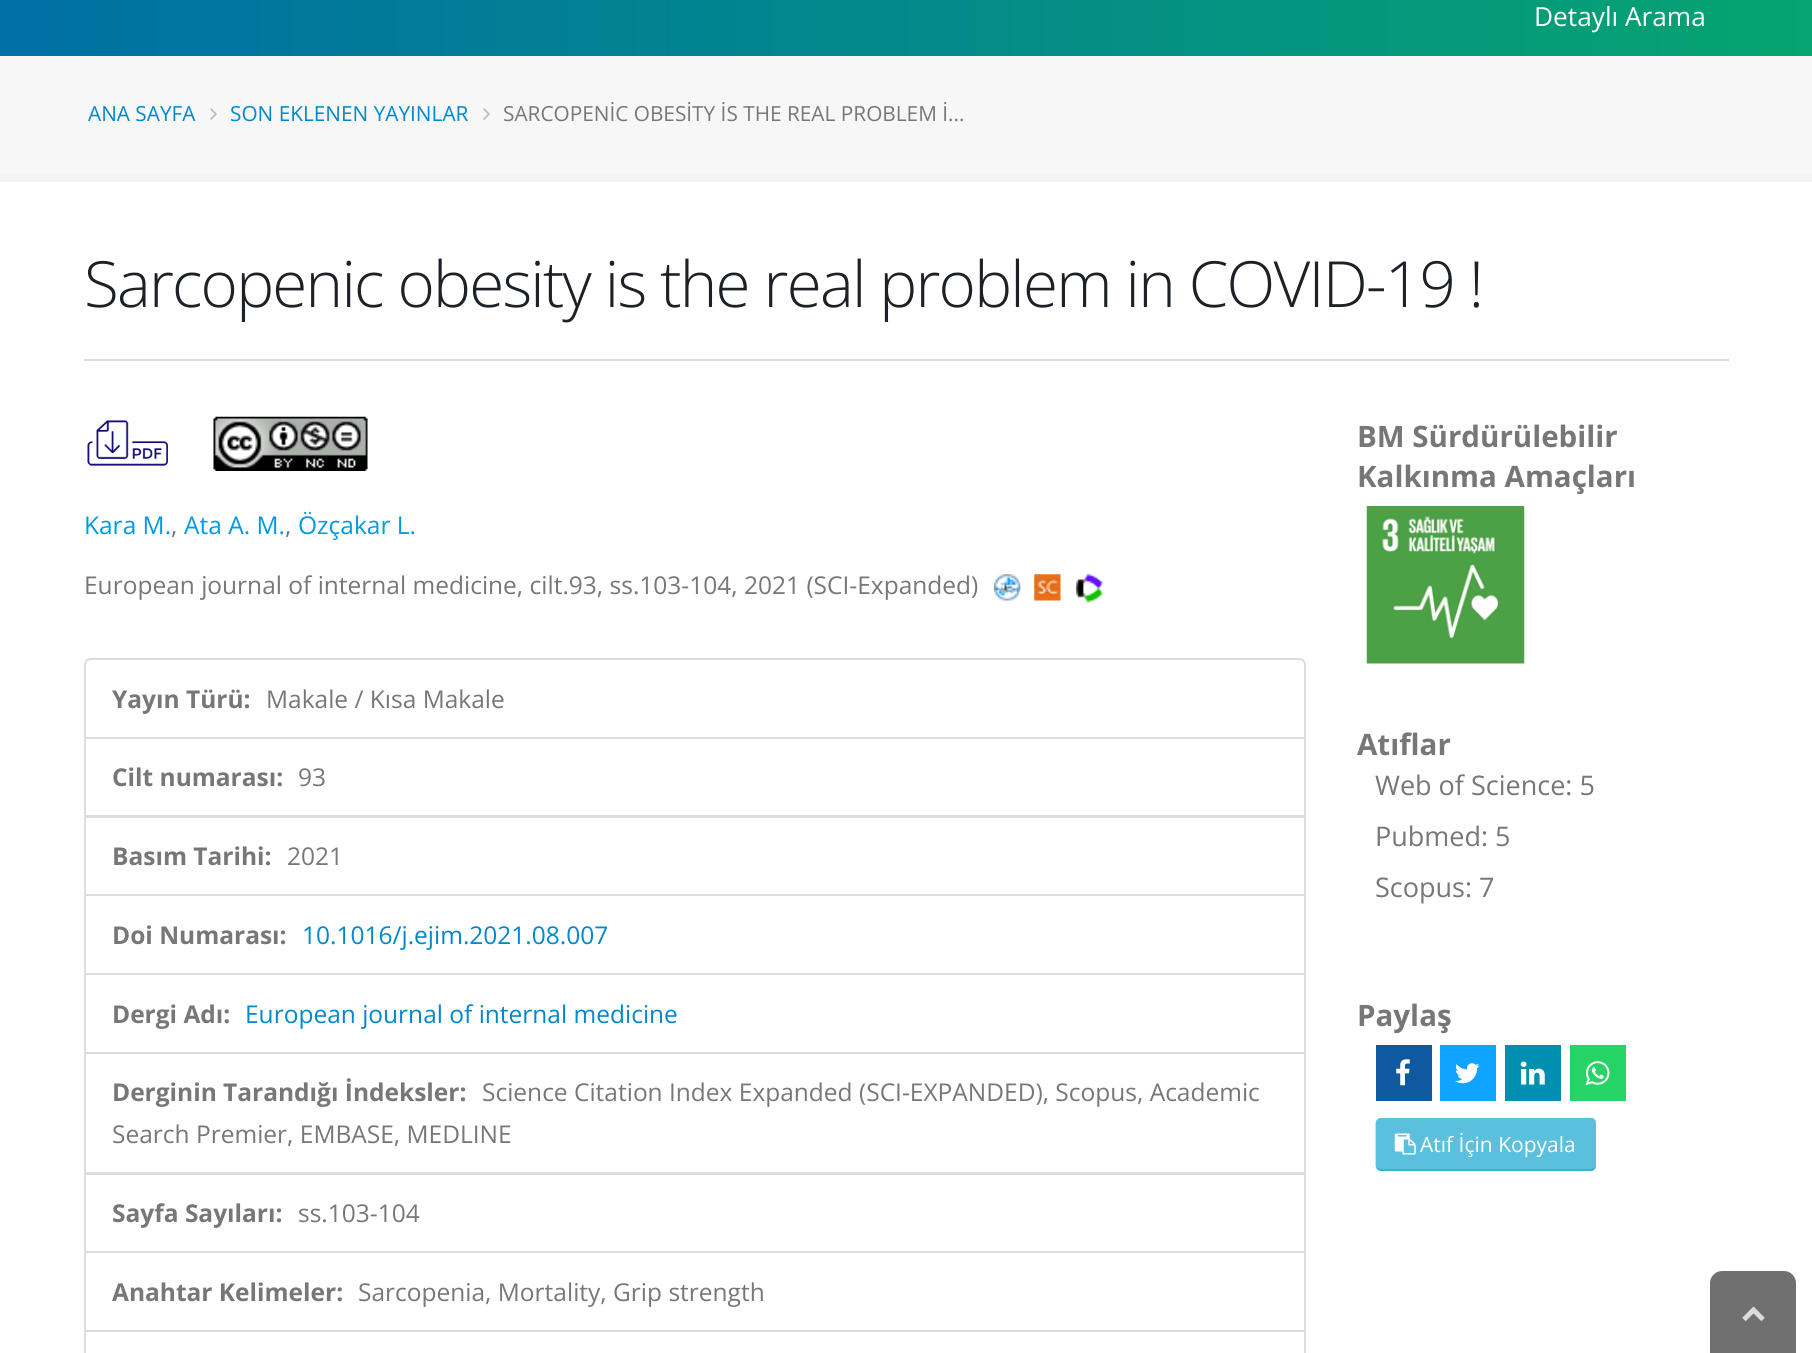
import math
import cairo

surface = cairo.ImageSurface(cairo.Format.RGB24, 1812, 1353)
ctx = cairo.Context(surface)
options = cairo.FontOptions()
options.set_hint_metrics(cairo.HintMetrics.OFF)
options.set_hint_style(cairo.HintStyle.NONE)
ctx.set_font_options(options)
ctx.set_miter_limit(4)


def ink(r, g, b):
    ctx.set_source_rgb(r / 255, g / 255, b / 255)


def write(x, y, s, family, size, color, bold=False, italic=False):
    ctx.select_font_face(family, cairo.FontSlant.ITALIC if italic else cairo.FontSlant.NORMAL, cairo.FontWeight.BOLD if bold else cairo.FontWeight.NORMAL)
    ctx.set_font_size(size)
    ink(*color)
    ctx.move_to(x, y)
    ctx.show_text(s)


def write_spaced(x, y, s, letter, word):
    ctx.move_to(x, y)
    for ch in s:
        ctx.show_text(ch)
        ctx.rel_move_to(letter + word * (ch == ' '), 0)


def block(x, y, w, h, *color):
    ink(*color)
    ctx.rectangle(x, y, w, h)
    ctx.fill()


def round_path(x, y, w, h, r):
    ctx.new_sub_path()
    for i, (u, v) in enumerate([(x + w - r, y + h - r), (x + r, y + h - r), (x + r, y + r), (x + w - r, y + r)]):
        ctx.arc(u, v, r, i * math.pi / 2, (i + 1) * math.pi / 2)
    ctx.close_path()


def paste(path, x, y, w, h):
    ctx.save()
    ctx.set_source_surface(cairo.ImageSurface.create_from_png(path), x, y)
    ctx.rectangle(x, y, w, h)
    ctx.fill()
    ctx.restore()


s1 = dict(family="Open Sans", size=26.25, color=(255, 255, 255))
s2 = dict(family="Open Sans", size=20.8, color=(0, 136, 204))
s3 = dict(family="Open Sans", size=20.8, color=(119, 119, 119))
s4 = dict(family="Open Sans", size=29.5, color=(119, 119, 119), bold=True)
s5 = dict(family="Open Sans", size=24.5, color=(0, 153, 230))
s6 = dict(family="Open Sans", size=24.5, color=(119, 119, 119))
s7 = dict(family="Open Sans", size=24.5, color=(119, 119, 119), bold=True)
s8 = dict(family="Open Sans", size=24.5, color=(0, 136, 204))
s9 = dict(family="Open Sans", size=27, color=(119, 119, 119))
s10 = dict(family="Open Sans", size=21, color=(255, 255, 255))

ink(255, 255, 255)
ctx.paint()
gradient = cairo.LinearGradient(0, -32, 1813, -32)
gradient.add_color_stop_rgba(0, 0, 0.435, 0.647, 1)
gradient.add_color_stop_rgba(1, 0.024, 0.643, 0.439, 1)
ctx.set_source(gradient)
ctx.rectangle(0, 0, 1812, 56)
ctx.fill()
write(1534, 26, "Detaylı Arama", **s1)
block(0, 56, 1812, 117, 247, 247, 247)
block(0, 173, 1812, 9, 244, 244, 244)
write(88, 121, "ANA SAYFA", **s2)
paste("pic1.png", 210, 108, 7, 12)
write(230, 121, "SON EKLENEN YAYINLAR", **s2)
paste("pic1.png", 483, 108, 7, 12)
write(503, 121, "SARCOPENİC OBESİTY İS THE REAL PROBLEM İ...", **s3)
ctx.select_font_face("Open Sans Light")
ctx.set_font_size(63.7)
ink(29, 33, 39)
write_spaced(84, 307, "Sarcopenic obesity is the real problem in COVID-19 !", -1.75, 0)
block(84, 359, 1645, 2, 219, 219, 219)
write(1357, 447, "BM Sürdürülebilir", **s4)
write(1357, 487, "Kalkınma Amaçları", **s4)
paste("pic2.png", 1366, 506, 159, 158)
paste("pic3.png", 87, 420, 81, 46)
paste("pic4.png", 213, 416, 155, 55)
write(84, 534, "Kara M.", **s5)
write(171, 534, ",", **s6)
write(184, 534, "Ata A. M.", **s5)
write(285, 534, ",", **s6)
write(298, 534, "Özçakar L.", **s5)
write(84, 594, "European journal of internal medicine, cilt.93, ss.103-104, 2021 (SCI-Expanded)", **s6)
paste("pic5.png", 994, 574, 27, 27)
paste("pic6.png", 1034, 574, 27, 27)
paste("pic7.png", 1076, 574, 27, 29)
ctx.new_path()
ctx.move_to(91, 659)
ctx.line_to(1299, 659)
ctx.curve_to(1302.5, 659, 1305, 661.5, 1305, 665)
ctx.line_to(1305, 738)
ctx.line_to(85, 738)
ctx.line_to(85, 665)
ctx.curve_to(85, 661.5, 87.5, 659, 91, 659)
ctx.close_path()
ink(221, 221, 221)
ctx.stroke()
write(112, 708, "Yayın Türü:", **s7)
write(266, 708, "Makale / Kısa Makale", **s6)
ctx.rectangle(85, 738, 1220, 78)
ink(221, 221, 221)
ctx.stroke()
write(112, 786, "Cilt numarası:", **s7)
write(298, 786, "93", **s6)
ctx.rectangle(85, 817, 1220, 78)
ink(221, 221, 221)
ctx.stroke()
write(112, 865, "Basım Tarihi:", **s7)
write(287, 865, "2021", **s6)
ctx.rectangle(85, 895, 1220, 79)
ink(221, 221, 221)
ctx.stroke()
write(112, 944, "Doi Numarası:", **s7)
write(302, 944, "10.1016/j.ejim.2021.08.007", **s8)
ctx.rectangle(85, 974, 1220, 79)
ink(221, 221, 221)
ctx.stroke()
write(112, 1023, "Dergi Adı:", **s7)
write(245, 1023, "European journal of internal medicine", **s8)
ctx.rectangle(85, 1053, 1220, 120)
ink(221, 221, 221)
ctx.stroke()
write(112, 1101, "Derginin Tarandığı İndeksler:", **s7)
write(482, 1101, "Science Citation Index Expanded (SCI-EXPANDED), Scopus, Academic", **s6)
write(112, 1143, "Search Premier, EMBASE, MEDLINE", **s6)
ctx.rectangle(85, 1174, 1220, 78)
ink(221, 221, 221)
ctx.stroke()
write(112, 1222, "Sayfa Sayıları:", **s7)
write(298, 1222, "ss.103-104", **s6)
ctx.rectangle(85, 1252, 1220, 79)
ink(221, 221, 221)
ctx.stroke()
write(112, 1301, "Anahtar Kelimeler:", **s7)
write(358, 1301, "Sarcopenia, Mortality, Grip strength", **s6)
ctx.rectangle(85, 1331, 1220, 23)
ink(221, 221, 221)
ctx.stroke()
write(1357, 755, "Atıflar", **s4)
write(1375, 795, "Web of Science: 5", **s9)
write(1375, 846, "Pubmed: 5", **s9)
write(1375, 897, "Scopus: 7", **s9)
write(1357, 1026, "Paylaş", **s4)
block(1376, 1045, 56, 56, 14, 89, 160)
paste("pic8.png", 1396, 1059, 14, 27)
block(1440, 1045, 56, 56, 14, 164, 255)
paste("pic9.png", 1455, 1063, 25, 21)
block(1505, 1045, 56, 56, 1, 143, 175)
paste("pic10.png", 1520, 1061, 25, 24)
block(1570, 1045, 56, 56, 37, 211, 102)
paste("pic11.png", 1585, 1061, 25, 25)
ink(91, 192, 222)
round_path(1376, 1118, 220, 53, 5)
ctx.fill()
ctx.new_path()
ctx.move_to(1594, 1168.5)
ctx.line_to(1591, 1170)
ctx.line_to(1416, 1170)
ctx.line_to(1381, 1170)
ctx.line_to(1377.5, 1168.5)
ink(49, 176, 213)
ctx.set_line_width(1.8)
ctx.stroke()
ctx.new_path()
ctx.move_to(1377.5, 1168.5)
ctx.curve_to(1377, 1168, 1376.5, 1166.5, 1376.5, 1165.5)
ctx.line_to(1376.5, 1123.5)
ctx.curve_to(1376.5, 1122.5, 1377, 1121, 1377.5, 1120.5)
ctx.curve_to(1378.5, 1119.5, 1379.5, 1119, 1381, 1119)
ctx.line_to(1591, 1119)
ctx.curve_to(1592, 1119, 1593, 1119.5, 1594, 1120.5)
ctx.curve_to(1594.5, 1121, 1595, 1122.5, 1595, 1123.5)
ctx.line_to(1595, 1165.5)
ctx.curve_to(1595, 1166.5, 1594.5, 1168, 1594, 1168.5)
ink(91, 192, 222)
ctx.stroke()
paste("pic12.png", 1394, 1133, 22, 22)
write(1420, 1152, "Atıf İçin Kopyala", **s10)
ink(112, 112, 112)
ctx.new_path()
ctx.move_to(1722, 1271)
ctx.line_to(1784, 1271)
ctx.curve_to(1790.5, 1271, 1796, 1276.5, 1796, 1283)
ctx.line_to(1796, 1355)
ctx.line_to(1710, 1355)
ctx.line_to(1710, 1283)
ctx.curve_to(1710, 1276.5, 1715.5, 1271, 1722, 1271)
ctx.close_path()
ctx.fill()
paste("pic13.png", 1742, 1306, 23, 15)
surface.write_to_png("screenshot.png")
